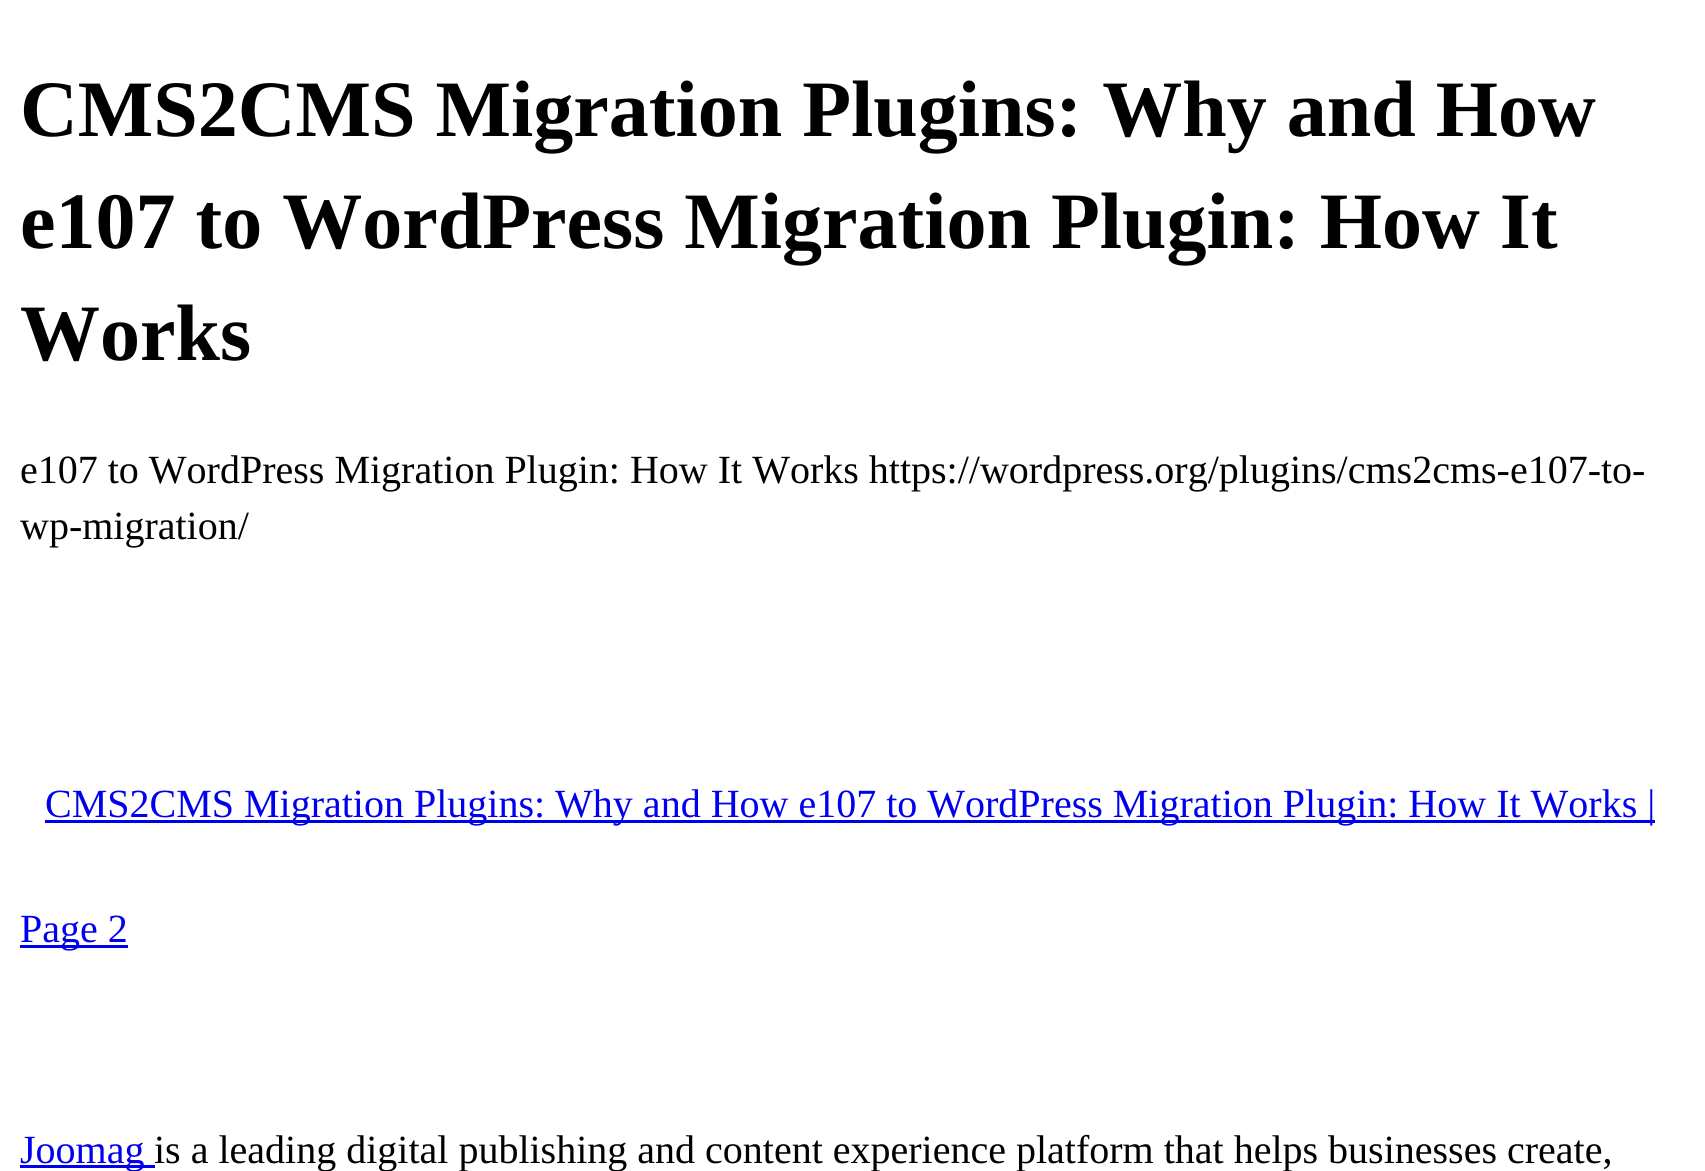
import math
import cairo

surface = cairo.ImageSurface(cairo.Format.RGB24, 1705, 1171)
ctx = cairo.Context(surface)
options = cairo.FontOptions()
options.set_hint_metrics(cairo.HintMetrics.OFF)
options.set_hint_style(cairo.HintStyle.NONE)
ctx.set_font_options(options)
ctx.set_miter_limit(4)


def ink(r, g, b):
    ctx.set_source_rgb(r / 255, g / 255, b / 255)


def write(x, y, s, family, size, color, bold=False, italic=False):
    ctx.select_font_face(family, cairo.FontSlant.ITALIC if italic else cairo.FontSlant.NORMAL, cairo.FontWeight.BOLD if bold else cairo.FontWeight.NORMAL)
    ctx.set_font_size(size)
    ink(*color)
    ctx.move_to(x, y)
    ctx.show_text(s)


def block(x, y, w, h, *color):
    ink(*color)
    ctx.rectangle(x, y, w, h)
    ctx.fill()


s1 = dict(family="Liberation Serif", size=80, color=(0, 0, 0), bold=True)
s2 = dict(family="Liberation Serif", size=40, color=(0, 0, 0))
s3 = dict(family="Liberation Serif", size=40, color=(0, 0, 238))

ink(255, 255, 255)
ctx.paint()
write(20, 136, "CMS2CMS Migration Plugins: Why and How", **s1)
write(20, 248, "e107 to WordPress Migration Plugin: How It", **s1)
write(20, 360, "Works", **s1)
write(20, 483, "e107 to WordPress Migration Plugin: How It Works https://wordpress.org/plugins/cms2cms-e107-to-", **s2)
write(20, 539, "wp-migration/", **s2)
block(45, 820, 1610, 3, 0, 0, 238)
write(45, 817, "CMS2CMS Migration Plugins: Why and How e107 to WordPress Migration Plugin: How It Works |", **s3)
block(20, 945, 108, 3, 0, 0, 238)
write(20, 942, "Page 2", **s3)
block(20, 1165, 135, 3, 0, 0, 238)
write(20, 1163, "Joomag", **s3)
write(154, 1163, "is a leading digital publishing and content experience platform that helps businesses create,", **s2)
surface.write_to_png("screenshot.png")
